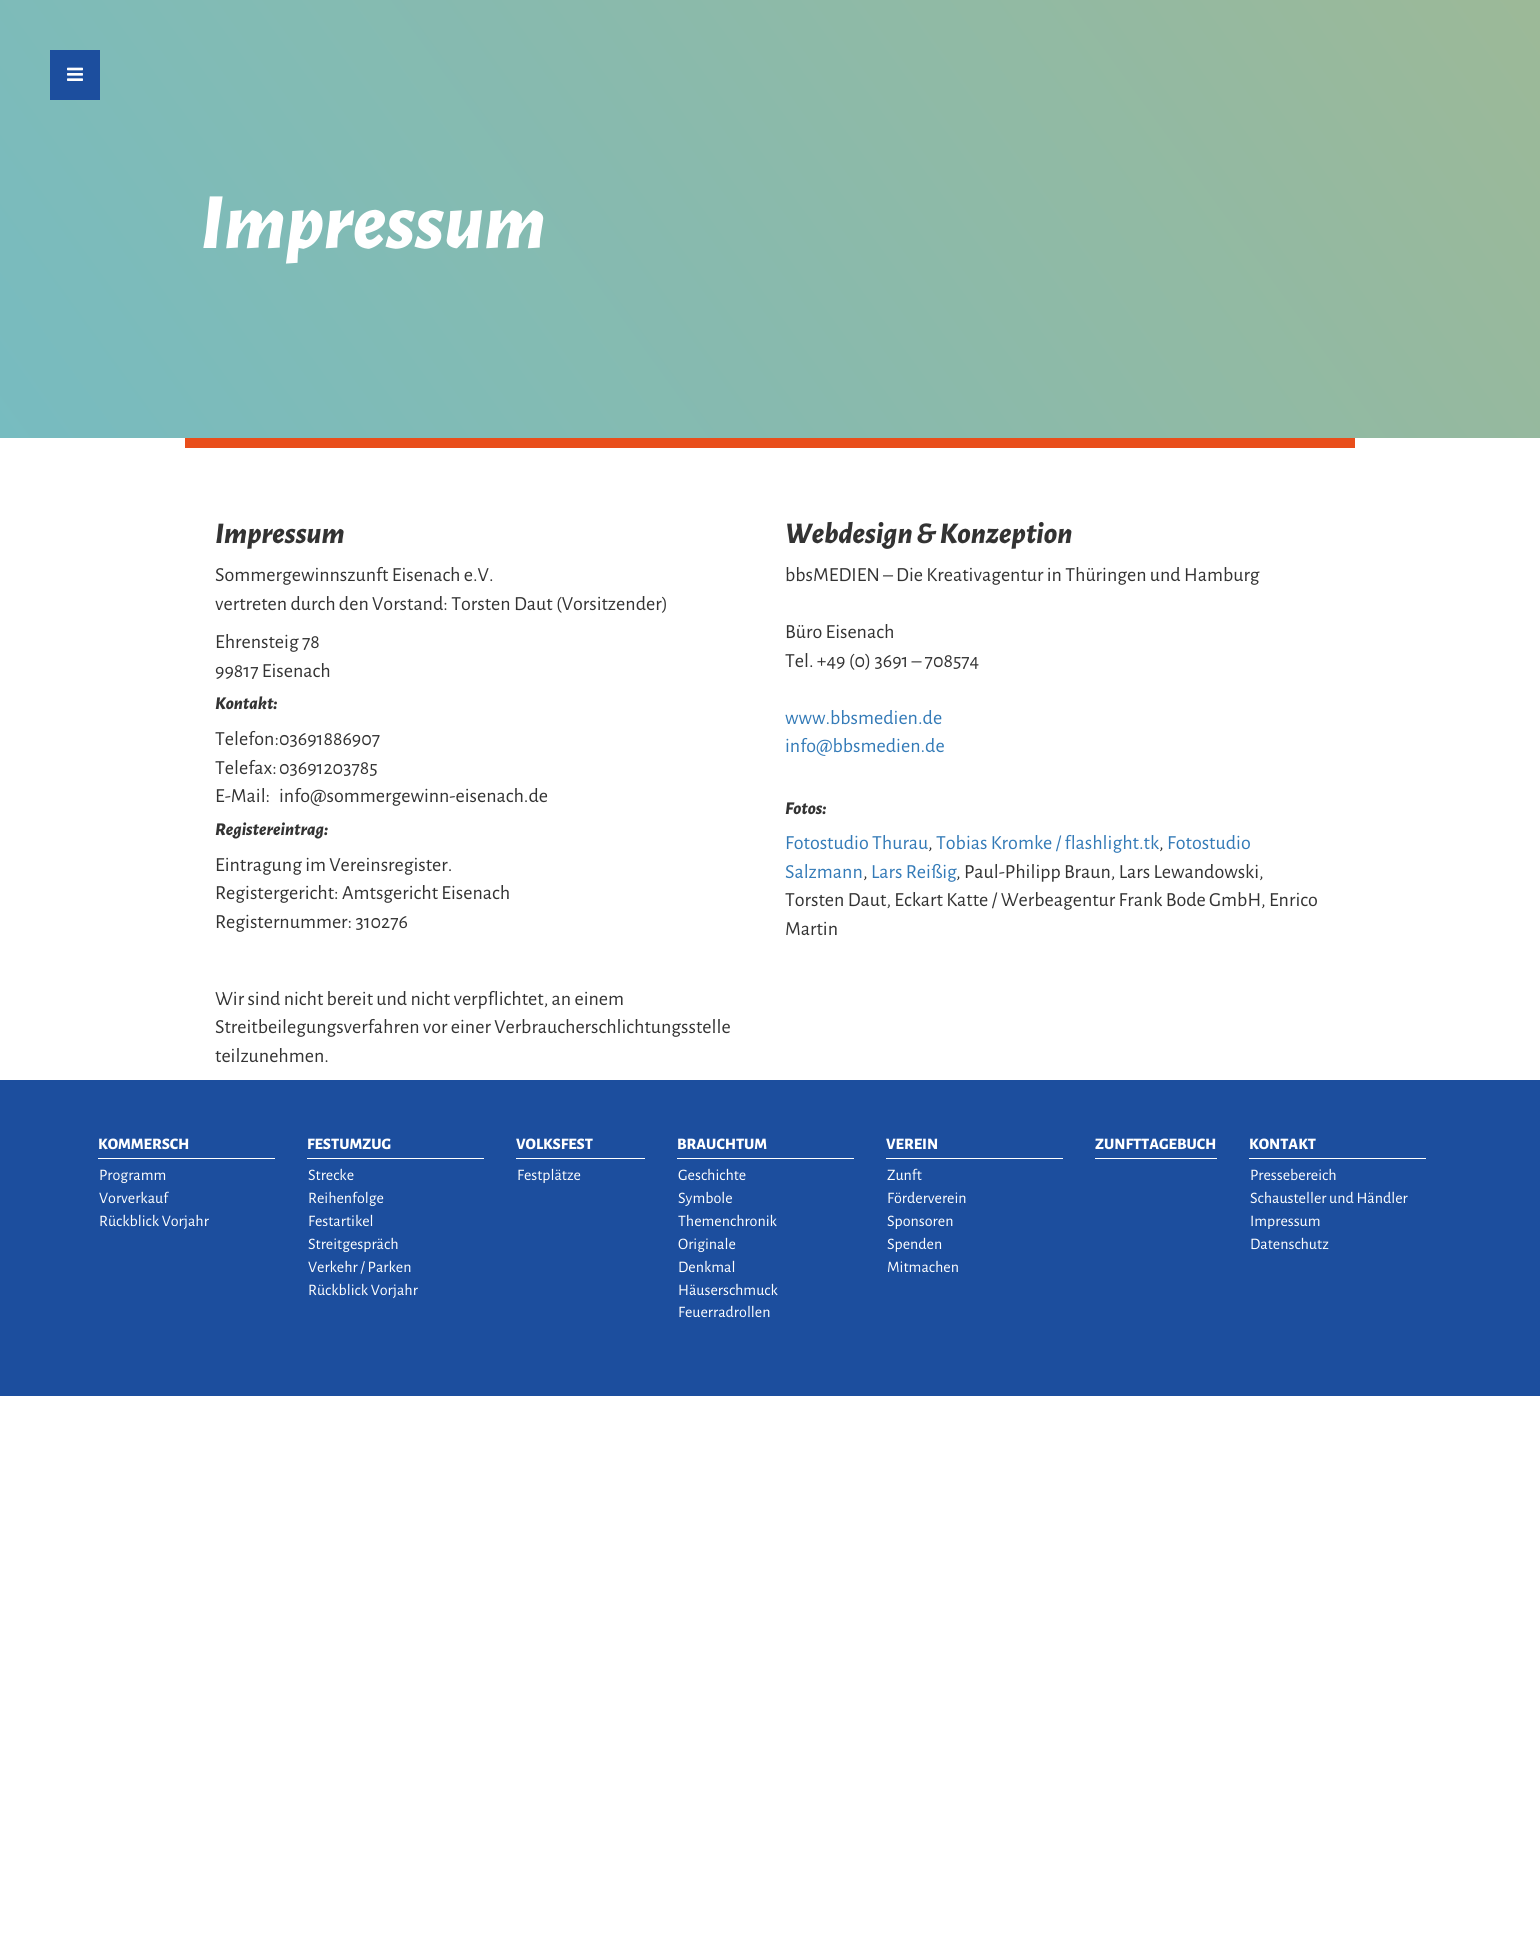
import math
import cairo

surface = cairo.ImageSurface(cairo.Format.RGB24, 1540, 1942)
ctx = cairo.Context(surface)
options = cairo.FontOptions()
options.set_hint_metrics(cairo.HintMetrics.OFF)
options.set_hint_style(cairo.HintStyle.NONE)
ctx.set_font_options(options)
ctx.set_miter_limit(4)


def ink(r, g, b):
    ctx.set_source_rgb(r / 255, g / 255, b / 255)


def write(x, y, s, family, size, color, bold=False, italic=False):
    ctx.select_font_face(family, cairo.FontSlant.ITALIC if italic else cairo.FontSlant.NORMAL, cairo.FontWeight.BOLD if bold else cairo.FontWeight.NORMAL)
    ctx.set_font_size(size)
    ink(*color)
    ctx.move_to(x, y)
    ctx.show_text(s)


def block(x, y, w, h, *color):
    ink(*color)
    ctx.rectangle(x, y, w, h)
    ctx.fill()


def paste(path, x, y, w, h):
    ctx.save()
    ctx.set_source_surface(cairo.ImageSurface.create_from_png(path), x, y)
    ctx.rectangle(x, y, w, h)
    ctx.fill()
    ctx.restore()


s1 = dict(family="Alegreya Sans ExtraBold", size=80, color=(255, 255, 255), italic=True)
s2 = dict(family="Alegreya Sans ExtraBold", size=30, color=(51, 51, 51), italic=True)
s3 = dict(family="Alegreya Sans", size=20, color=(51, 51, 51))
s4 = dict(family="Alegreya Sans ExtraBold", size=18, color=(51, 51, 51), italic=True)
s5 = dict(family="Alegreya Sans", size=20, color=(51, 122, 183))
s6 = dict(family="Alegreya Sans ExtraBold", size=16, color=(255, 255, 255))
s7 = dict(family="Alegreya Sans", size=16, color=(255, 255, 255))

ink(255, 255, 255)
ctx.paint()
gradient = cairo.LinearGradient(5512, -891, 648, 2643)
gradient.add_color_stop_rgba(0, 0.976, 0.698, 0.2, 1)
gradient.add_color_stop_rgba(1, 0.392, 0.741, 0.835, 1)
ctx.set_source(gradient)
ctx.rectangle(0, 0, 1540, 438)
ctx.fill()
block(50, 50, 50, 50, 28, 78, 158)
paste("pic1.png", 67, 67, 16, 14)
write(200, 248, "Impressum", **s1)
block(185, 438, 1170, 10, 233, 78, 27)
write(215, 543, "Impressum", **s2)
write(215, 581, "Sommergewinnszunft Eisenach e.V.", **s3)
write(215, 610, "vertreten durch den Vorstand: Torsten Daut (Vorsitzender)", **s3)
write(215, 648, "Ehrensteig 78", **s3)
write(215, 677, "99817 Eisenach", **s3)
write(215, 709, "Kontakt:", **s4)
write(215, 745, "Telefon:03691886907", **s3)
write(215, 774, "Telefax:", **s3)
write(279, 774, "03691203785", **s3)
write(215, 802, "E-Mail:", **s3)
write(279, 802, "info@sommergewinn-eisenach.de", **s3)
write(215, 835, "Registereintrag:", **s4)
write(215, 871, "Eintragung im Vereinsregister.", **s3)
write(215, 899, "Registergericht: Amtsgericht Eisenach", **s3)
write(215, 928, "Registernummer: 310276", **s3)
write(215, 1005, "Wir sind nicht bereit und nicht verpflichtet, an einem", **s3)
write(215, 1033, "Streitbeilegungsverfahren vor einer Verbraucherschlichtungsstelle", **s3)
write(215, 1062, "teilzunehmen.", **s3)
write(785, 543, "Webdesign & Konzeption", **s2)
write(785, 581, "bbsMEDIEN – Die Kreativagentur in Thüringen und Hamburg", **s3)
write(785, 638, "Büro Eisenach", **s3)
write(785, 667, "Tel. +49 (0) 3691 – 708574", **s3)
write(785, 724, "www.bbsmedien.de", **s5)
write(785, 752, "info@bbsmedien.de", **s5)
write(785, 814, "Fotos:", **s4)
write(785, 849, "Fotostudio Thurau", **s5)
write(928, 849, ",", **s3)
write(936, 849, "Tobias Kromke / flashlight.tk", **s5)
write(1159, 849, ",", **s3)
write(1167, 849, "Fotostudio", **s5)
write(785, 878, "Salzmann", **s5)
write(863, 878, ",", **s3)
write(871, 878, "Lars Reißig", **s5)
write(956, 878, ", Paul-Philipp Braun, Lars Lewandowski,", **s3)
write(785, 906, "Torsten Daut, Eckart Katte / Werbeagentur Frank Bode GmbH, Enrico", **s3)
write(785, 935, "Martin", **s3)
block(0, 1080, 1540, 316, 28, 78, 158)
block(98, 1158, 177, 1, 255, 255, 255)
write(98, 1149, "KOMMERSCH", **s6)
write(99, 1180, "Programm", **s7)
write(99, 1203, "Vorverkauf", **s7)
write(99, 1226, "Rückblick Vorjahr", **s7)
block(307, 1158, 177, 1, 255, 255, 255)
write(307, 1149, "FESTUMZUG", **s6)
write(308, 1180, "Strecke", **s7)
write(308, 1203, "Reihenfolge", **s7)
write(308, 1226, "Festartikel", **s7)
write(308, 1249, "Streitgespräch", **s7)
write(308, 1272, "Verkehr / Parken", **s7)
write(308, 1295, "Rückblick Vorjahr", **s7)
block(516, 1158, 129, 1, 255, 255, 255)
write(516, 1149, "VOLKSFEST", **s6)
write(517, 1180, "Festplätze", **s7)
block(677, 1158, 177, 1, 255, 255, 255)
write(677, 1149, "BRAUCHTUM", **s6)
write(678, 1180, "Geschichte", **s7)
write(678, 1203, "Symbole", **s7)
write(678, 1226, "Themenchronik", **s7)
write(678, 1249, "Originale", **s7)
write(678, 1272, "Denkmal", **s7)
write(678, 1295, "Häuserschmuck", **s7)
write(678, 1317, "Feuerradrollen", **s7)
block(886, 1158, 177, 1, 255, 255, 255)
write(886, 1149, "VEREIN", **s6)
write(887, 1180, "Zunft", **s7)
write(887, 1203, "Förderverein", **s7)
write(887, 1226, "Sponsoren", **s7)
write(887, 1249, "Spenden", **s7)
write(887, 1272, "Mitmachen", **s7)
block(1095, 1158, 122, 1, 255, 255, 255)
write(1095, 1149, "ZUNFTTAGEBUCH", **s6)
block(1249, 1158, 177, 1, 255, 255, 255)
write(1249, 1149, "KONTAKT", **s6)
write(1250, 1180, "Pressebereich", **s7)
write(1250, 1203, "Schausteller und Händler", **s7)
write(1250, 1226, "Impressum", **s7)
write(1250, 1249, "Datenschutz", **s7)
surface.write_to_png("screenshot.png")
